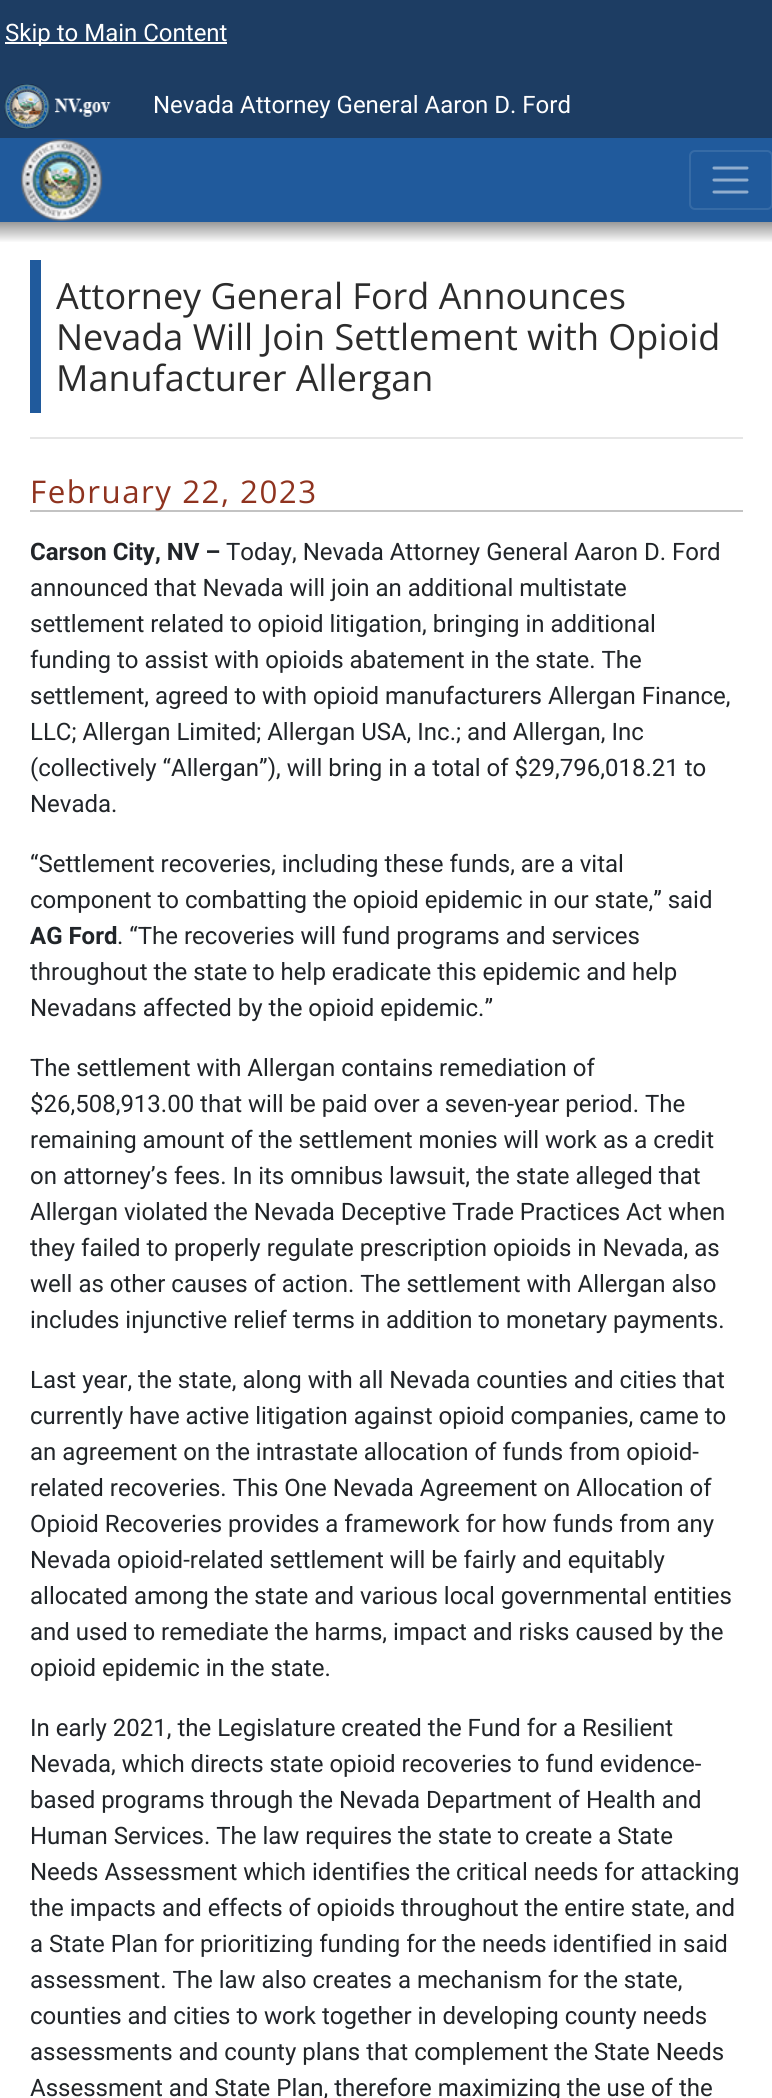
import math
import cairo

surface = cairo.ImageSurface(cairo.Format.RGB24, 772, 2098)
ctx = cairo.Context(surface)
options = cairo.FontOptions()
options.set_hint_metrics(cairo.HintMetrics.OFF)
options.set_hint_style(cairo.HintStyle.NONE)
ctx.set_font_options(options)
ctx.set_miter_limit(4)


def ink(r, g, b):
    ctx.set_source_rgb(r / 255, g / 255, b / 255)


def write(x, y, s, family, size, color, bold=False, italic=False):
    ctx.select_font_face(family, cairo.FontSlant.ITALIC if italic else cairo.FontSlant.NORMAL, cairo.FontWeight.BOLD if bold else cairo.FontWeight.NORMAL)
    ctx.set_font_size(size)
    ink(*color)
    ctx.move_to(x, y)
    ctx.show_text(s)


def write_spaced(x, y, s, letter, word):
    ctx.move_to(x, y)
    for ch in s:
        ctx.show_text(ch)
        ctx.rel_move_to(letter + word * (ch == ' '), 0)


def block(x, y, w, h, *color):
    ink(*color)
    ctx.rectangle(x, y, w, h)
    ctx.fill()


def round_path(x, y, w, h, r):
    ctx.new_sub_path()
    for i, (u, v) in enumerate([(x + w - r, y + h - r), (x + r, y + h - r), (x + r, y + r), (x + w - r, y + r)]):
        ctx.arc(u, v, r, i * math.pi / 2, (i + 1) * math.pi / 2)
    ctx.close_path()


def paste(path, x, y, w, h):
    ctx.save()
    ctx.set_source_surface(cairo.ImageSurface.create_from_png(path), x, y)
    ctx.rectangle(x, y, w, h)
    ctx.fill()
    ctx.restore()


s1 = dict(family="Roboto", size=24, color=(255, 255, 255))
s2 = dict(family="Open Sans", size=36, color=(44, 44, 44))
s3 = dict(family="Roboto", size=24, color=(33, 37, 41), bold=True)
s4 = dict(family="Roboto", size=24, color=(33, 37, 41))

ink(255, 255, 255)
ctx.paint()
gradient = cairo.LinearGradient(386, 0, 386, 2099)
gradient.add_color_stop_rgba(0, 0.114, 0.239, 0.388, 1)
gradient.add_color_stop_rgba(0.2, 0.114, 0.239, 0.388, 1)
gradient.add_color_stop_rgba(0.4, 0.125, 0.353, 0.612, 1)
ctx.set_source(gradient)
ctx.rectangle(0, 0, 772, 138)
ctx.fill()
block(5, 42, 222, 2, 255, 255, 255)
write(5, 41, "Skip to Main Content", **s1)
paste("pic1.png", 4, 84, 107, 45)
write(153, 113, "Nevada Attorney General Aaron D. Ford", **s1)
block(0, 138, 772, 84, 32, 90, 156)
paste("pic2.png", 20, 139, 83, 82)
round_path(690, 151, 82, 58, 5)
ink(54, 107, 166)
ctx.stroke()
ctx.new_path()
ctx.move_to(714, 168)
ctx.line_to(747, 168)
ctx.move_to(714, 180)
ctx.line_to(747, 180)
ctx.move_to(714, 192)
ctx.line_to(747, 192)
ink(144, 173, 206)
ctx.set_line_width(3)
ctx.set_line_cap(cairo.LineCap.ROUND)
ctx.stroke()
gradient = cairo.LinearGradient(386, 222, 386, 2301)
gradient.add_color_stop_rgba(0, 0.6, 0.6, 0.6, 1)
gradient.add_color_stop_rgba(0.01, 1, 1, 1, 1)
gradient.add_color_stop_rgba(1, 1, 1, 1, 1)
ctx.set_source(gradient)
ctx.rectangle(0, 222, 772, 20)
ctx.fill()
block(30, 260, 11, 153, 32, 90, 156)
write(56, 309, "Attorney General Ford Announces", **s2)
write(56, 350, "Nevada Will Join Settlement with Opioid", **s2)
write(56, 391, "Manufacturer Allergan", **s2)
block(30, 437, 713, 2, 230, 230, 230)
block(30, 510, 713, 2, 195, 195, 195)
ctx.set_font_size(31.25)
ink(143, 51, 31)
write_spaced(30, 503, "February 22, 2023", 1.5, 0)
write(30, 560, "Carson City, NV –", **s3)
write(226, 560, "Today, Nevada Attorney General Aaron D. Ford", **s4)
write(30, 596, "announced that Nevada will join an additional multistate", **s4)
write(30, 632, "settlement related to opioid litigation, bringing in additional", **s4)
write(30, 668, "funding to assist with opioids abatement in the state. The", **s4)
write(30, 704, "settlement, agreed to with opioid manufacturers Allergan Finance,", **s4)
write(30, 740, "LLC; Allergan Limited; Allergan USA, Inc.; and Allergan, Inc", **s4)
write(30, 776, "(collectively “Allergan”), will bring in a total of $29,796,018.21 to", **s4)
write(30, 812, "Nevada.", **s4)
write(30, 872, "“Settlement recoveries, including these funds, are a vital", **s4)
write(30, 908, "component to combatting the opioid epidemic in our state,” said", **s4)
write(30, 944, "AG Ford", **s3)
write(117, 944, ". “The recoveries will fund programs and services", **s4)
write(30, 980, "throughout the state to help eradicate this epidemic and help", **s4)
write(30, 1016, "Nevadans affected by the opioid epidemic.”", **s4)
write(30, 1076, "The settlement with Allergan contains remediation of", **s4)
write(30, 1112, "$26,508,913.00 that will be paid over a seven-year period. The", **s4)
write(30, 1148, "remaining amount of the settlement monies will work as a credit", **s4)
write(30, 1184, "on attorney’s fees. In its omnibus lawsuit, the state alleged that", **s4)
write(30, 1220, "Allergan violated the Nevada Deceptive Trade Practices Act when", **s4)
write(30, 1256, "they failed to properly regulate prescription opioids in Nevada, as", **s4)
write(30, 1292, "well as other causes of action. The settlement with Allergan also", **s4)
write(30, 1328, "includes injunctive relief terms in addition to monetary payments.", **s4)
write(30, 1388, "Last year, the state, along with all Nevada counties and cities that", **s4)
write(30, 1424, "currently have active litigation against opioid companies, came to", **s4)
write(30, 1460, "an agreement on the intrastate allocation of funds from opioid-", **s4)
write(30, 1496, "related recoveries. This One Nevada Agreement on Allocation of", **s4)
write(30, 1532, "Opioid Recoveries provides a framework for how funds from any", **s4)
write(30, 1568, "Nevada opioid-related settlement will be fairly and equitably", **s4)
write(30, 1604, "allocated among the state and various local governmental entities", **s4)
write(30, 1640, "and used to remediate the harms, impact and risks caused by the", **s4)
write(30, 1676, "opioid epidemic in the state.", **s4)
write(30, 1736, "In early 2021, the Legislature created the Fund for a Resilient", **s4)
write(30, 1772, "Nevada, which directs state opioid recoveries to fund evidence-", **s4)
write(30, 1808, "based programs through the Nevada Department of Health and", **s4)
write(30, 1844, "Human Services. The law requires the state to create a State", **s4)
write(30, 1880, "Needs Assessment which identifies the critical needs for attacking", **s4)
write(30, 1916, "the impacts and effects of opioids throughout the entire state, and", **s4)
write(30, 1952, "a State Plan for prioritizing funding for the needs identified in said", **s4)
write(30, 1988, "assessment. The law also creates a mechanism for the state,", **s4)
write(30, 2024, "counties and cities to work together in developing county needs", **s4)
write(30, 2060, "assessments and county plans that complement the State Needs", **s4)
write(30, 2096, "Assessment and State Plan, therefore maximizing the use of the", **s4)
surface.write_to_png("screenshot.png")
